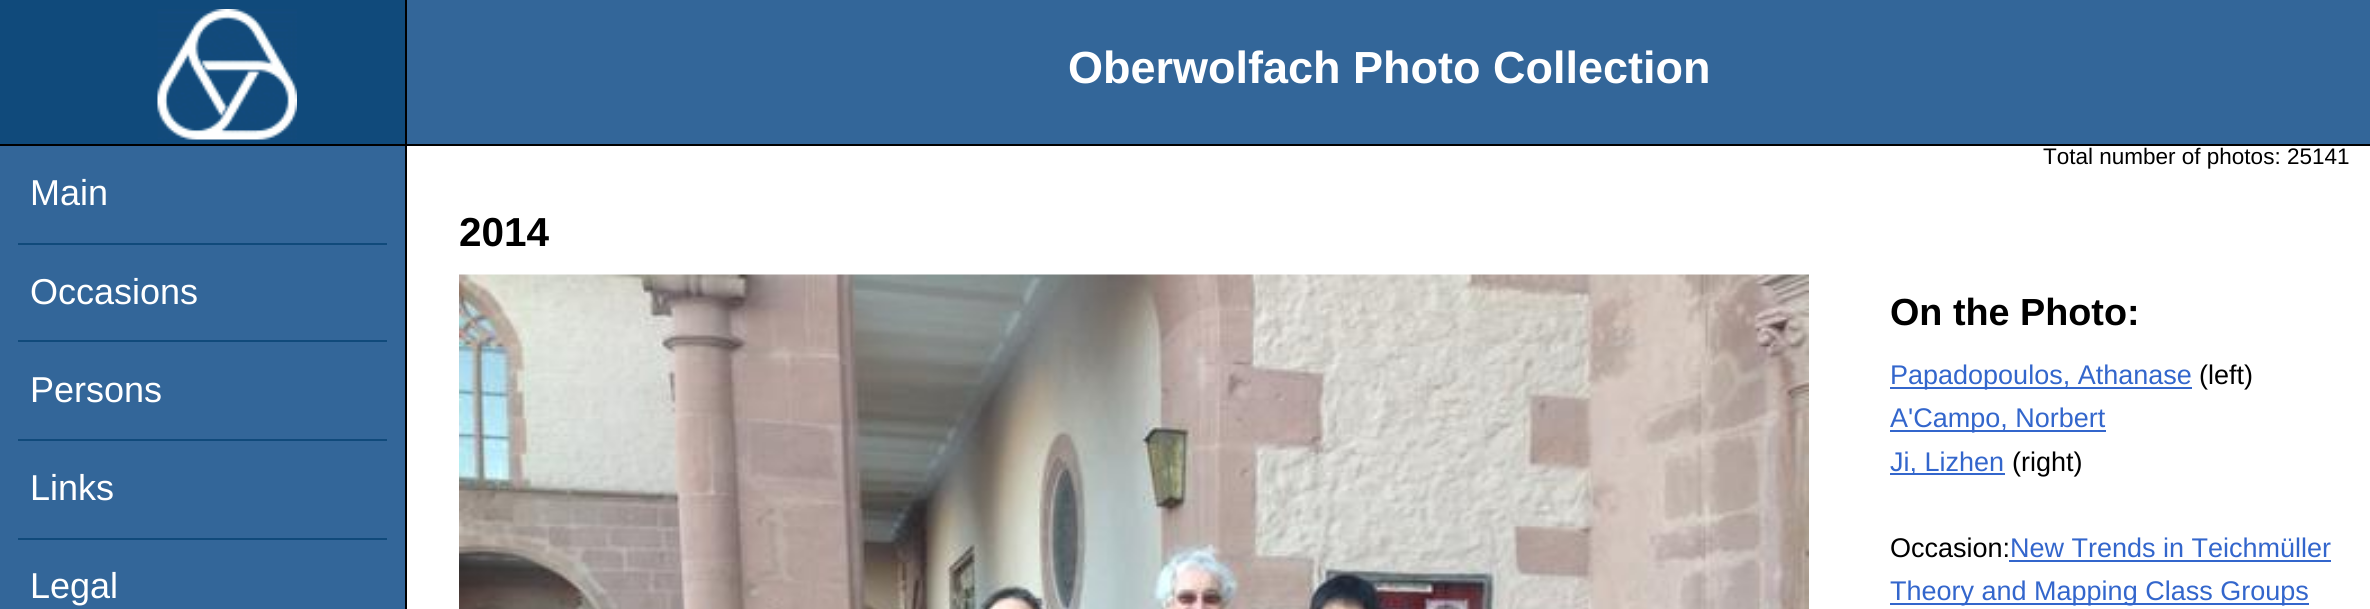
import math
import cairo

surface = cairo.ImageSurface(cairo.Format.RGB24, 2370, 609)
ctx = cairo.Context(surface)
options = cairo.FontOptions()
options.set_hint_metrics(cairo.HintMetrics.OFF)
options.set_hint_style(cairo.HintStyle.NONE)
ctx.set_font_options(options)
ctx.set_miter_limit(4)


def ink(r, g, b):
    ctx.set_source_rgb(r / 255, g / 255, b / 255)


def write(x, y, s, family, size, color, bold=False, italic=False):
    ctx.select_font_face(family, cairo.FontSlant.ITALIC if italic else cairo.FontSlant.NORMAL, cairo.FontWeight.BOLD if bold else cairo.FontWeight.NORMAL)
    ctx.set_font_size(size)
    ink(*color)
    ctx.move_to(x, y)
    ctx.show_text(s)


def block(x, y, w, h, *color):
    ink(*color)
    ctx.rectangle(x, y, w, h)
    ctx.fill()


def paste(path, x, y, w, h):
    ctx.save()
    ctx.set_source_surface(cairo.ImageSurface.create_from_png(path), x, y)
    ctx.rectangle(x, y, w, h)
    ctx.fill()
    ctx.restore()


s1 = dict(family="Liberation Sans", size=45, color=(255, 255, 255), bold=True)
s2 = dict(family="Liberation Sans", size=22.5, color=(0, 0, 0))
s3 = dict(family="Liberation Sans", size=36, color=(255, 255, 255))
s4 = dict(family="Liberation Sans", size=40.5, color=(0, 0, 0), bold=True)
s5 = dict(family="Liberation Sans", size=37.75, color=(0, 0, 0), bold=True)
s6 = dict(family="Liberation Sans", size=27, color=(51, 102, 204))
s7 = dict(family="Liberation Sans", size=27, color=(0, 0, 0))

ink(255, 255, 255)
ctx.paint()
block(407, 0, 1963, 144, 51, 102, 153)
block(0, 144, 2370, 2, 0, 0, 0)
block(0, 0, 405, 144, 16, 74, 123)
block(405, 0, 2, 144, 0, 0, 0)
paste("pic1.png", 157, 9, 140, 131)
write(1068, 83, "Oberwolfach Photo Collection", **s1)
write(2043, 164, "Total number of photos: 25141", **s2)
block(0, 146, 405, 463, 51, 102, 153)
block(405, 146, 2, 463, 0, 0, 0)
write(30, 205, "Main", **s3)
block(18, 243, 369, 2, 16, 74, 123)
write(30, 304, "Occasions", **s3)
block(18, 340, 369, 2, 16, 74, 123)
write(30, 402, "Persons", **s3)
block(18, 439, 369, 2, 16, 74, 123)
write(30, 500, "Links", **s3)
block(18, 538, 369, 2, 16, 74, 123)
write(30, 598, "Legal", **s3)
write(459, 246, "2014", **s4)
paste("pic2.png", 459, 274, 1350, 335)
write(1890, 325, "On the Photo:", **s5)
block(1890, 387, 302, 2, 51, 102, 204)
write(1890, 384, "Papadopoulos, Athanase", **s6)
write(2199, 384, "(left)", **s7)
block(1890, 430, 216, 2, 51, 102, 204)
write(1890, 427, "A'Campo, Norbert", **s6)
block(1890, 473, 115, 2, 51, 102, 204)
write(1890, 471, "Ji, Lizhen", **s6)
write(2012, 471, "(right)", **s7)
write(1890, 557, "Occasion:", **s7)
write(2010, 557, "New Trends in Teichmüller", **s6)
block(2009, 560, 322, 2, 51, 102, 204)
block(1890, 603, 419, 2, 51, 102, 204)
write(1890, 600, "Theory and Mapping Class Groups", **s6)
surface.write_to_png("screenshot.png")
